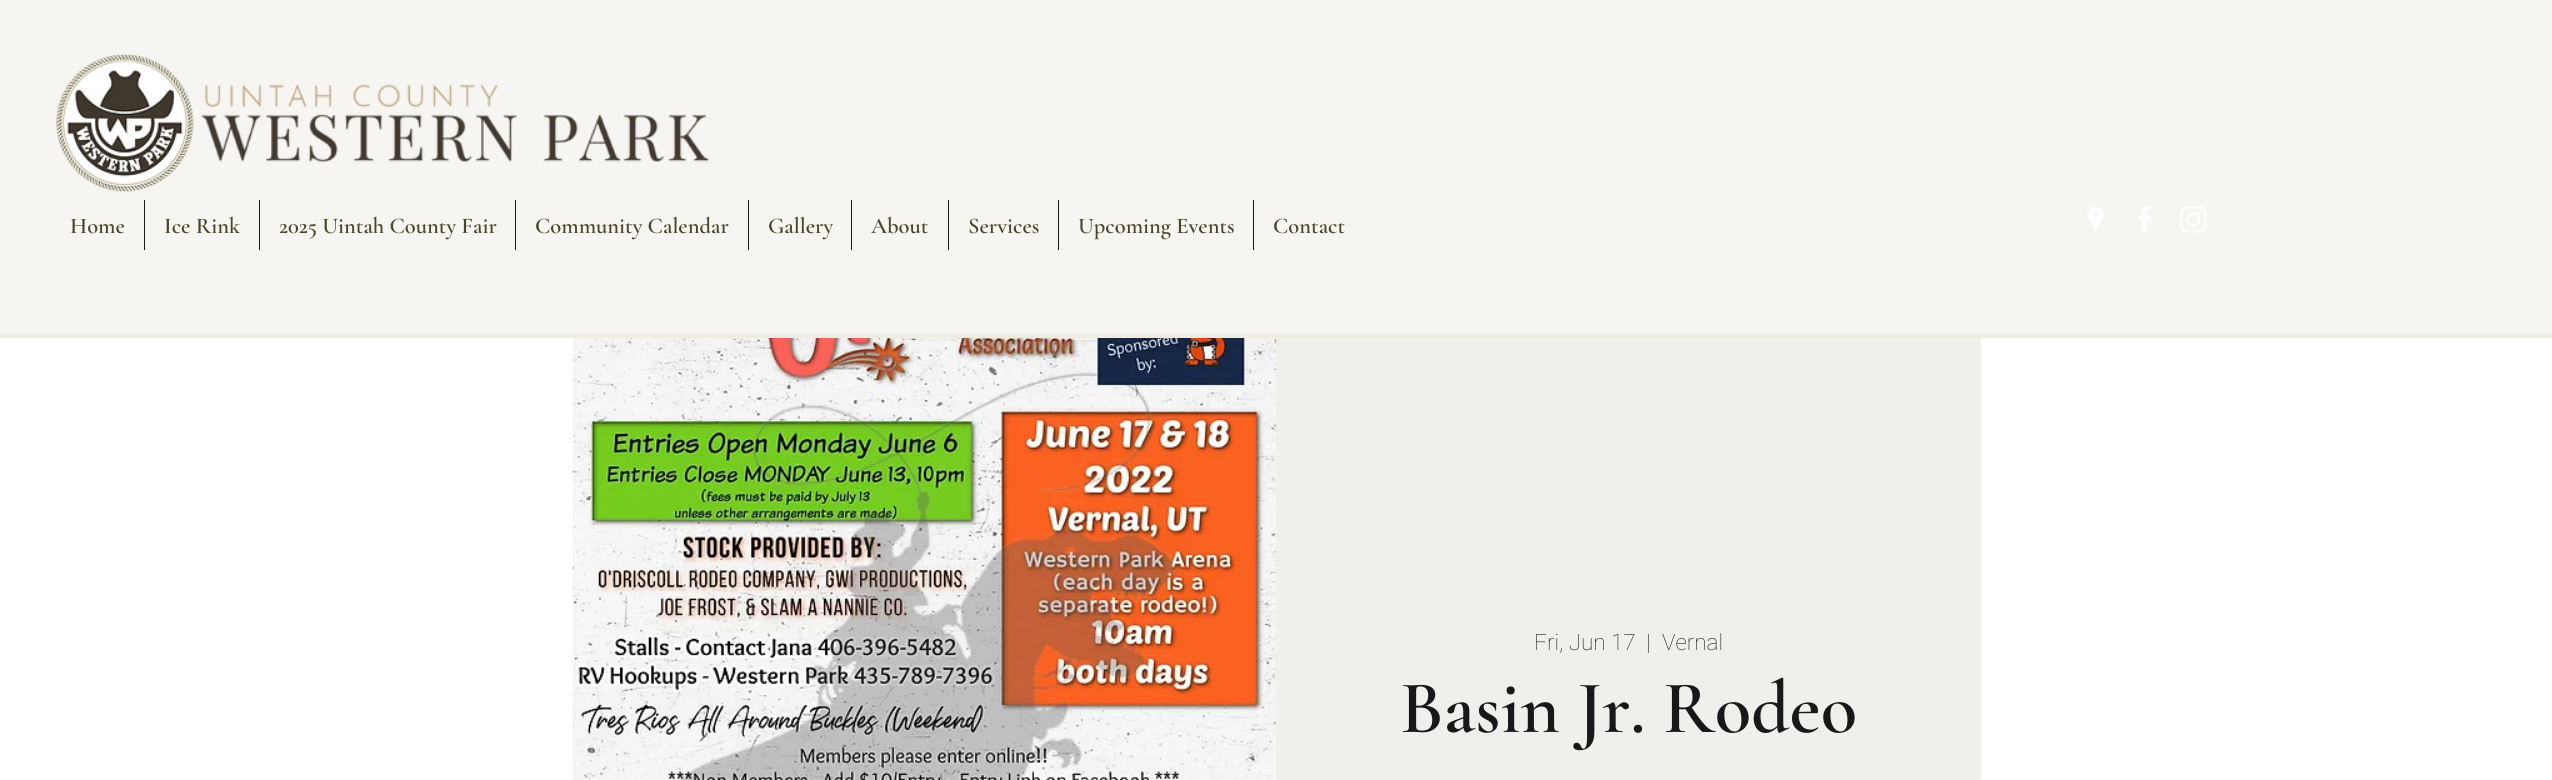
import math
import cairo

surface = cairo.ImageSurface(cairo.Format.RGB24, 2552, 780)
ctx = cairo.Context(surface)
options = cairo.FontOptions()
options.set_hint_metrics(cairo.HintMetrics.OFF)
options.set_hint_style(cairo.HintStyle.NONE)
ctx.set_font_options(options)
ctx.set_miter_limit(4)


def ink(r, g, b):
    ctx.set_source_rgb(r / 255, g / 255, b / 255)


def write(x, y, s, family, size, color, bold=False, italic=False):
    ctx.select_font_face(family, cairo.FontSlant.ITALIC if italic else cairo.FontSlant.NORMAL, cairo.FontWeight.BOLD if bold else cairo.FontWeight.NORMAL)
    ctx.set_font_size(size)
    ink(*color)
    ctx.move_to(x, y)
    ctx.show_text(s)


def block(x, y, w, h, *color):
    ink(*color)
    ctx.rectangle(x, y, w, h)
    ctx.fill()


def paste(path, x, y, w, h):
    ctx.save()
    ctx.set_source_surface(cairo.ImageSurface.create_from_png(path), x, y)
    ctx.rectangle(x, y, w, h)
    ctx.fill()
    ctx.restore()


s1 = dict(family="Cormorant Garamond SemiBold", size=22.5, color=(75, 67, 41))
s2 = dict(family="Roboto Thin", size=22.5, color=(24, 24, 24))
s3 = dict(family="Cormorant Garamond SemiBold", size=75, color=(24, 24, 24))

ink(255, 255, 255)
ctx.paint()
block(0, 0, 2552, 334, 247, 245, 241)
paste("pic1.png", 56, 53, 653, 139)
write(70, 233, "Home", **s1)
block(144, 200, 1, 50, 24, 24, 24)
write(164, 233, "Ice Rink", **s1)
block(259, 200, 1, 50, 24, 24, 24)
write(279, 233, "2025 Uintah County Fair", **s1)
block(515, 200, 1, 50, 24, 24, 24)
write(535, 233, "Community Calendar", **s1)
block(748, 200, 1, 50, 24, 24, 24)
write(768, 233, "Gallery", **s1)
block(851, 200, 1, 50, 24, 24, 24)
write(871, 233, "About", **s1)
block(948, 200, 1, 50, 24, 24, 24)
write(968, 233, "Services", **s1)
block(1058, 200, 1, 50, 24, 24, 24)
write(1078, 233, "Upcoming Events", **s1)
block(1253, 200, 1, 50, 24, 24, 24)
write(1273, 233, "Contact", **s1)
paste("pic2.png", 2087, 206, 17, 26)
paste("pic3.png", 2137, 206, 15, 27)
paste("pic4.png", 2180, 206, 27, 27)
block(0, 334, 2552, 4, 239, 236, 226)
paste("pic5.png", 572, 338, 705, 442)
ctx.set_source_rgba(0.404, 0.361, 0.22, 0.1)
ctx.rectangle(1276, 338, 705, 442)
ctx.fill()
write(1534, 650, "Fri, Jun 17", **s2)
write(1646, 650, "|", **s2)
write(1662, 650, "Vernal", **s2)
write(1400, 732, "Basin Jr. Rodeo", **s3)
surface.write_to_png("screenshot.png")
